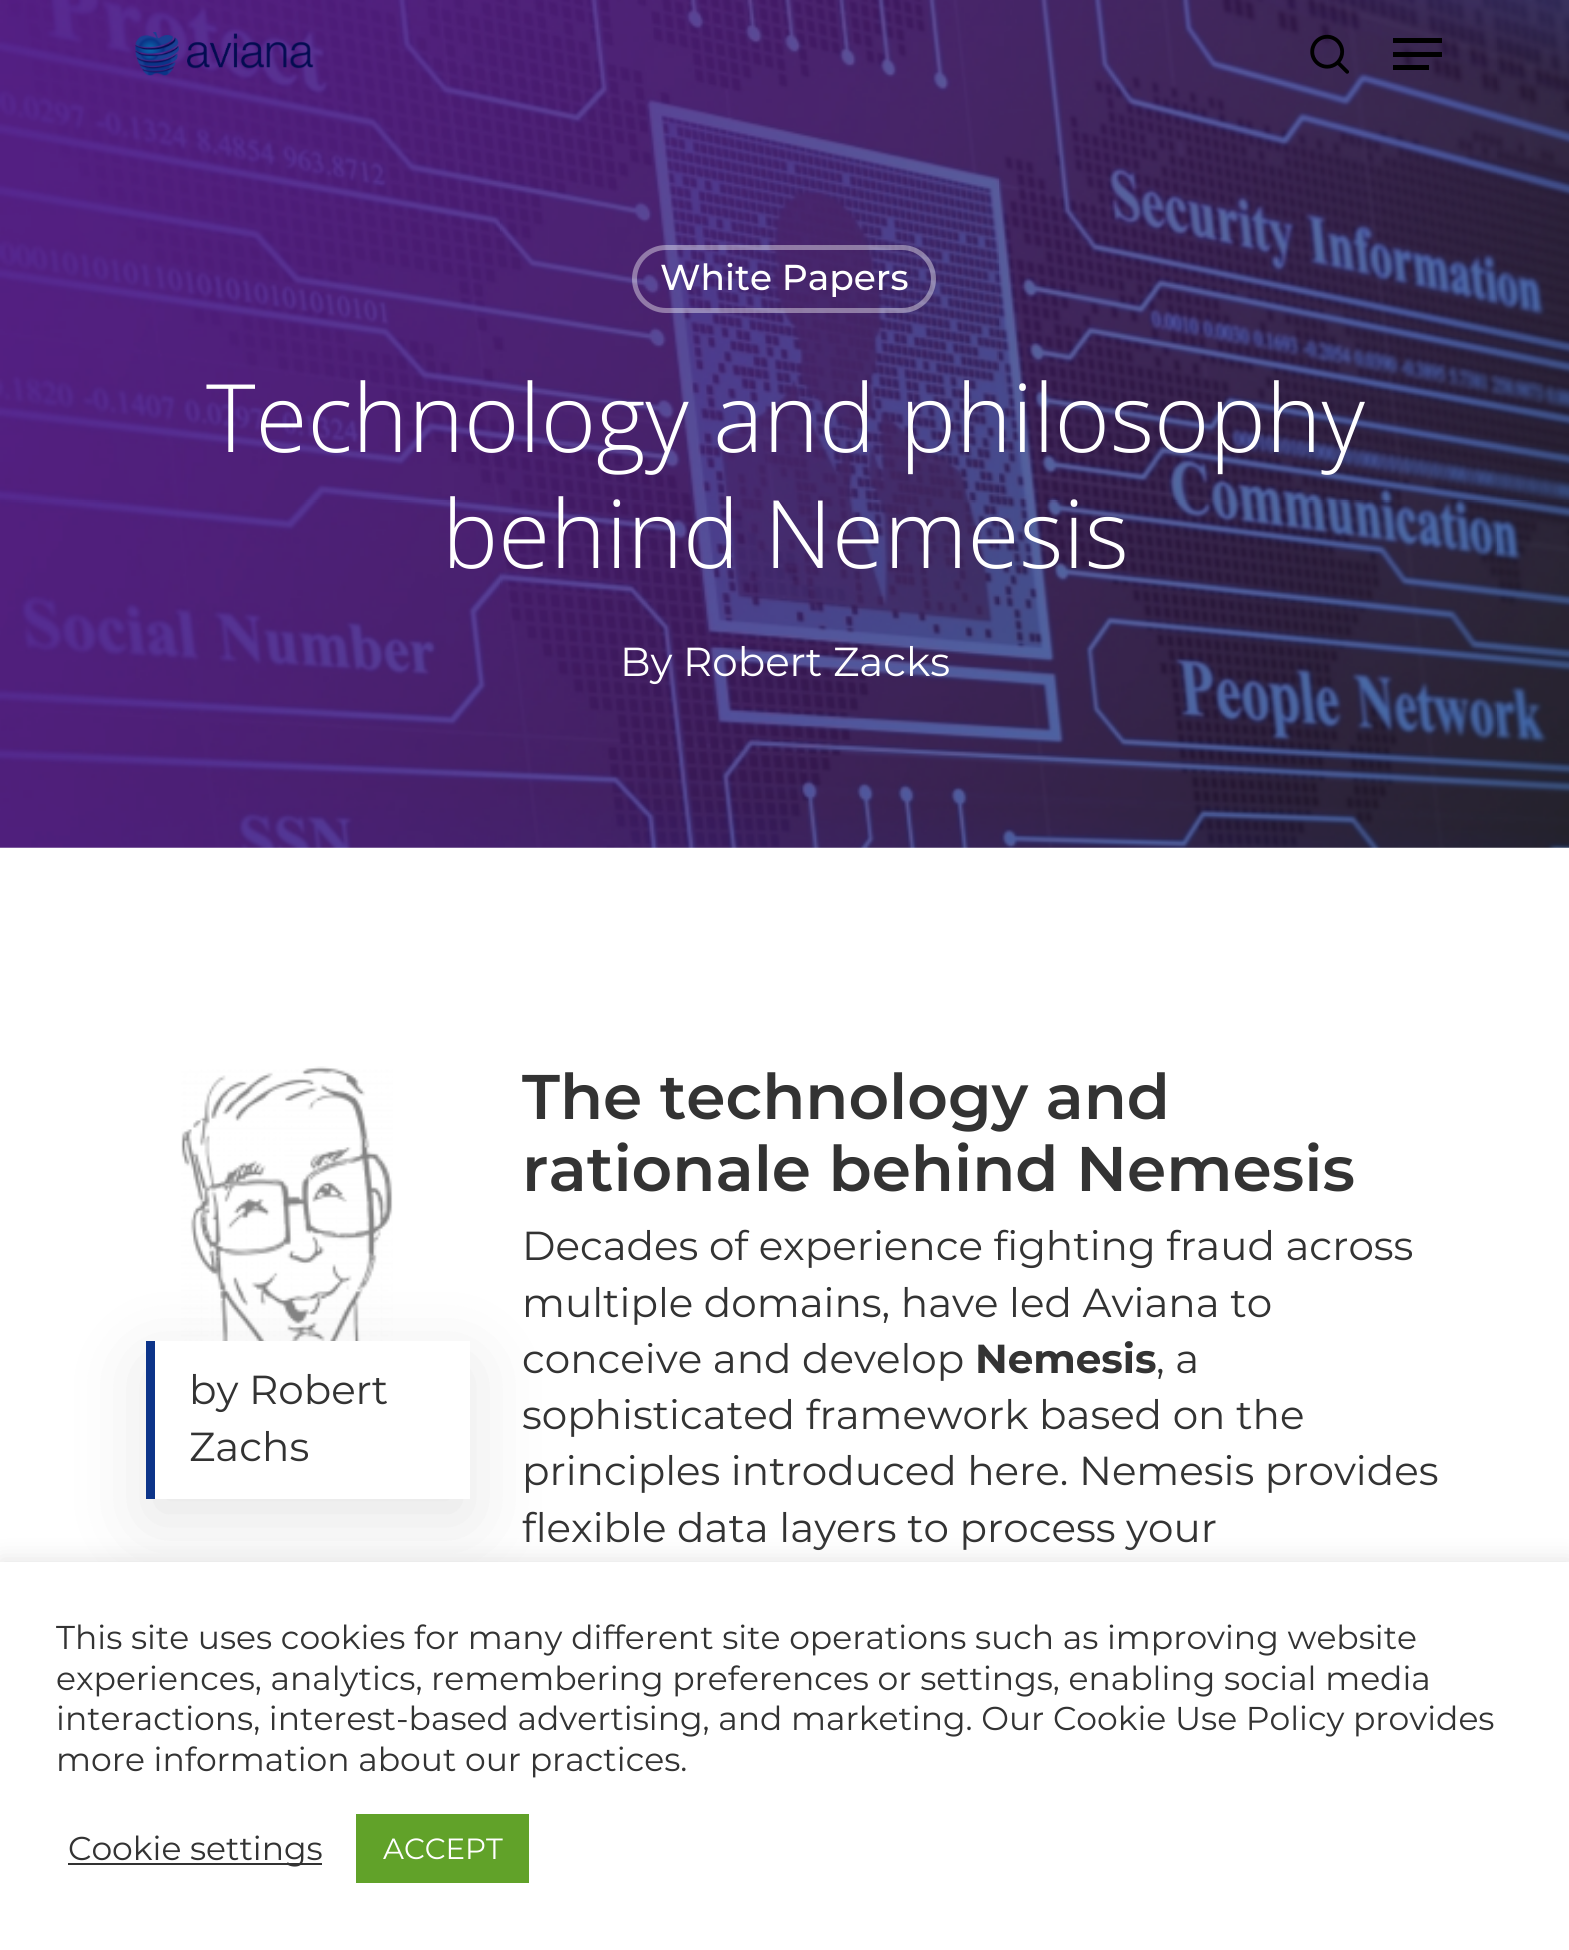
import math
import cairo

surface = cairo.ImageSurface(cairo.Format.RGB24, 1569, 1950)
ctx = cairo.Context(surface)
options = cairo.FontOptions()
options.set_hint_metrics(cairo.HintMetrics.OFF)
options.set_hint_style(cairo.HintStyle.NONE)
ctx.set_font_options(options)
ctx.set_miter_limit(4)


def ink(r, g, b):
    ctx.set_source_rgb(r / 255, g / 255, b / 255)


def write(x, y, s, family, size, color, bold=False, italic=False):
    ctx.select_font_face(family, cairo.FontSlant.ITALIC if italic else cairo.FontSlant.NORMAL, cairo.FontWeight.BOLD if bold else cairo.FontWeight.NORMAL)
    ctx.set_font_size(size)
    ink(*color)
    ctx.move_to(x, y)
    ctx.show_text(s)


def block(x, y, w, h, *color):
    ink(*color)
    ctx.rectangle(x, y, w, h)
    ctx.fill()


def round_path(x, y, w, h, r):
    ctx.new_sub_path()
    for i, (u, v) in enumerate([(x + w - r, y + h - r), (x + r, y + h - r), (x + r, y + r), (x + w - r, y + r)]):
        ctx.arc(u, v, r, i * math.pi / 2, (i + 1) * math.pi / 2)
    ctx.close_path()


def blur_box(x, y, w, h, r, blur, alpha):
    ctx.push_group_with_content(cairo.Content.ALPHA)
    ctx.set_operator(cairo.Operator.SOURCE)
    for i in range(15, -16, -2):
        e = blur * i / 6
        if min(w, h) + 2 * e > 0:
            ctx.set_source_rgba(0, 0, 0, alpha * math.erfc((i - 1) / 8.5) / 2)
            round_path(x - e, y - e, w + 2 * e, h + 2 * e, max(0, min(r + e + blur * .6, min(w, h) / 2 + e)))
            ctx.fill()
    ctx.mask(ctx.pop_group())


def paste(path, x, y, w, h):
    ctx.save()
    ctx.set_source_surface(cairo.ImageSurface.create_from_png(path), x, y)
    ctx.rectangle(x, y, w, h)
    ctx.fill()
    ctx.restore()


s1 = dict(family="Montserrat Medium", size=36, color=(255, 255, 255))
s2 = dict(family="Open Sans Light", size=94.5, color=(255, 255, 255))
s3 = dict(family="Montserrat", size=40.5, color=(255, 255, 255))
s4 = dict(family="Montserrat SemiBold", size=63, color=(51, 51, 51))
s5 = dict(family="Montserrat", size=40.5, color=(51, 51, 51))
s6 = dict(family="Montserrat", size=40.5, color=(51, 51, 51), bold=True)
s7 = dict(family="Montserrat", size=33, color=(51, 51, 51))
s8 = dict(family="Montserrat", size=29.25, color=(255, 255, 255))

ink(255, 255, 255)
ctx.paint()
paste("pic3.png", 0, 0, 1569, 848)
paste("pic1.png", 135, 32, 179, 44)
paste("pic2.png", 1310, 34, 39, 40)
block(1393, 38, 49, 5, 0, 0, 0)
block(1393, 65, 36, 5, 0, 0, 0)
block(1393, 52, 49, 5, 0, 0, 0)
round_path(634.5, 247.5, 299, 63, 31.5)
ctx.set_source_rgba(1, 1, 1, 0.4)
ctx.set_line_width(5)
ctx.stroke()
write(660, 290, "White Papers", **s1)
write(206, 452, "Technology and philosophy", **s2)
write(442, 568, "behind Nemesis", **s2)
write(620, 676, "By", **s3)
write(683, 676, "Robert Zacks", **s3)
write(522, 1119, "The technology and", **s4)
write(522, 1191, "rationale behind Nemesis", **s4)
paste("pic4.png", 181, 1066, 212, 275)
ink(0, 0, 0)
blur_box(146, 1364, 324, 157, 0, 39.5, 0.1)
block(155, 1341, 315, 158, 255, 255, 255)
block(146, 1341, 9, 158, 12, 52, 137)
write(189, 1404, "by Robert", **s5)
write(189, 1461, "Zachs", **s5)
write(522, 1260, "Decades of experience fighting fraud across", **s5)
write(522, 1317, "multiple domains, have led Aviana to", **s5)
write(522, 1373, "conceive and develop", **s5)
write(975, 1373, "Nemesis", **s6)
write(1156, 1373, ", a", **s5)
write(522, 1429, "sophisticated framework based on the", **s5)
write(522, 1485, "principles introduced here. Nemesis provides", **s5)
write(522, 1542, "flexible data layers to process your", **s5)
ink(172, 171, 171)
blur_box(0, 1559, 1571, 390, 0, 11, 0.3)
block(0, 1562, 1569, 388, 255, 255, 255)
write(56, 1649, "This site uses cookies for many different site operations such as improving website", **s7)
write(56, 1690, "experiences, analytics, remembering preferences or settings, enabling social media", **s7)
write(56, 1730, "interactions, interest-based advertising, and marketing. Our Cookie Use Policy provides", **s7)
write(56, 1771, "more information about our practices.", **s7)
block(68, 1863, 254, 2, 51, 51, 51)
write(68, 1860, "Cookie settings", **s7)
block(356, 1814, 173, 69, 97, 162, 41)
write(383, 1859, "ACCEPT", **s8)
surface.write_to_png("screenshot.png")
